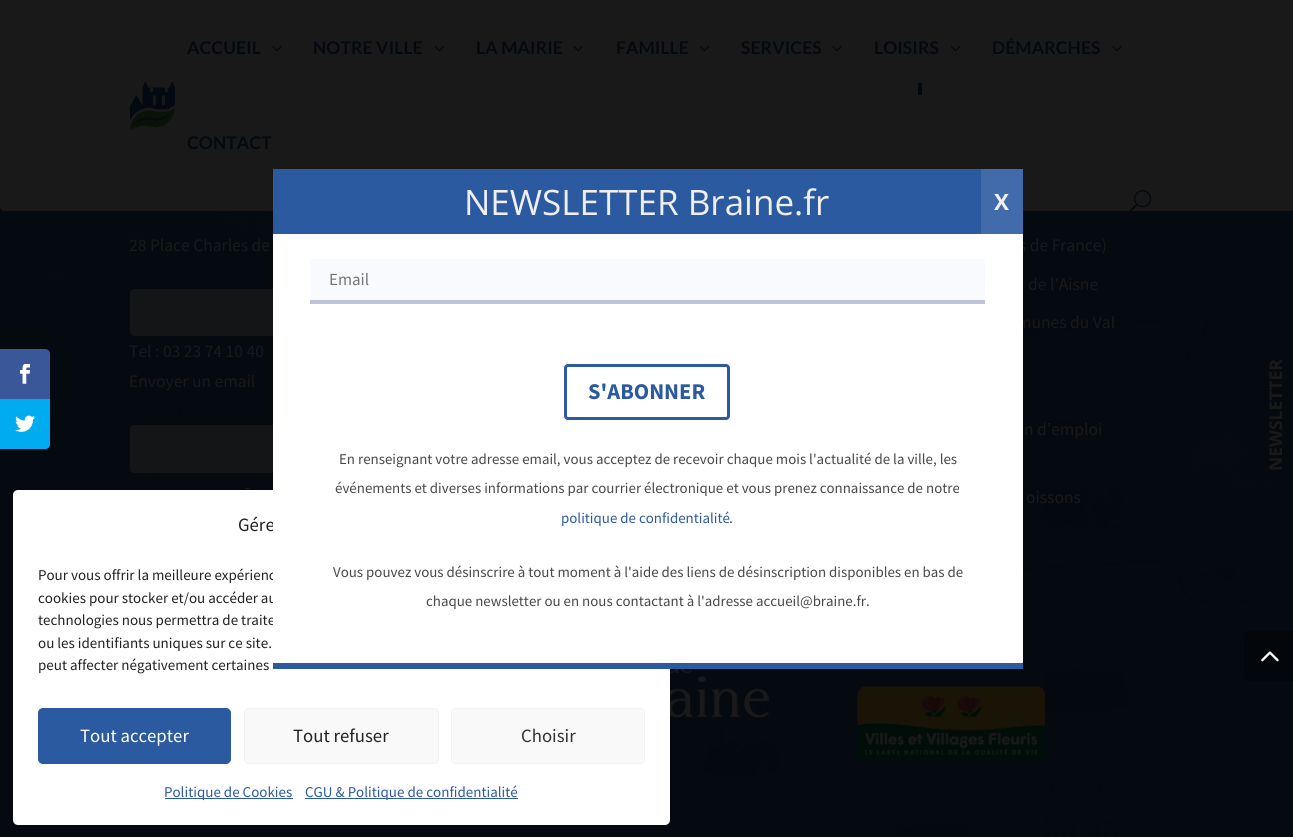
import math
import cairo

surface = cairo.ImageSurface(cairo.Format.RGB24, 1293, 837)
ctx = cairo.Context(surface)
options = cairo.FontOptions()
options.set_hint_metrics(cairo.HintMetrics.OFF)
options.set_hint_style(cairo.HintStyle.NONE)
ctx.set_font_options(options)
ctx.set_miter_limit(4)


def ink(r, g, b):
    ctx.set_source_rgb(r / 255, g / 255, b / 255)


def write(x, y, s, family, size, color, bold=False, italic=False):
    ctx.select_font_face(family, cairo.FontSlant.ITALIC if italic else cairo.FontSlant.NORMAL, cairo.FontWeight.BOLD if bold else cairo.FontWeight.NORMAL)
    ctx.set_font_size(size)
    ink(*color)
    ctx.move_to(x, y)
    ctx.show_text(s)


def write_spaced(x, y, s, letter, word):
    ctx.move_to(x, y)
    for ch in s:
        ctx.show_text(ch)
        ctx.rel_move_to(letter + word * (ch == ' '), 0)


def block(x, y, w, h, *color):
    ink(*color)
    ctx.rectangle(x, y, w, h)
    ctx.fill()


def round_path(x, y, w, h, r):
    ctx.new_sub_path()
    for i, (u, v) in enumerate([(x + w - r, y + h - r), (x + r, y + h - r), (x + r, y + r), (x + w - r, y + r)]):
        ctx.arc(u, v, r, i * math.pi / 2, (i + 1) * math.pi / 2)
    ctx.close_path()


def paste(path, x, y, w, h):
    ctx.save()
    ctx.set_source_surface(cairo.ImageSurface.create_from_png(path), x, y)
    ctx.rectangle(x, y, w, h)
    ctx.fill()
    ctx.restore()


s1 = dict(family="Source Sans Pro", size=17.5, color=(25, 25, 25))
s2 = dict(family="Source Sans Pro", size=18.75, color=(34, 34, 34))
s3 = dict(family="Source Sans Pro", size=15, color=(34, 34, 34))
s4 = dict(family="Open Sans", size=35, color=(239, 239, 239))
s5 = dict(family="Open Sans", size=22.5, color=(239, 239, 239), bold=True)
s6 = dict(family="Source Sans Pro", size=17, color=(117, 117, 117))
s7 = dict(family="Source Sans Pro", size=22.5, color=(44, 90, 160), bold=True)
s8 = dict(family="Source Sans Pro", size=14.9, color=(72, 72, 72))
s9 = dict(family="Source Sans Pro", size=14.9, color=(44, 90, 160))
s10 = dict(family="Open Sans", size=17.5, color=(25, 25, 25), bold=True)
s11 = dict(family="Source Sans Pro", size=18.75, color=(255, 255, 255))
s12 = dict(family="Source Sans Pro", size=18.75, color=(51, 51, 51))
s13 = dict(family="Source Sans Pro", size=15, color=(44, 90, 160))

ink(25, 25, 25)
ctx.paint()
paste("pic7.png", 0, 207, 1293, 630)
ink(25, 25, 25)
round_path(0, 0, 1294, 211, 4)
ctx.fill()
paste("pic1.png", 130, 81, 45, 49)
ctx.select_font_face("Lato", cairo.FontSlant.NORMAL, cairo.FontWeight.BOLD)
ctx.set_font_size(17.5)
ink(4, 9, 16)
write_spaced(187, 54, "ACCUEIL", 0.1, 0)
paste("pic2.png", 272, 46, 10, 6)
write_spaced(313, 54, "NOTRE VILLE", 0.1, 0)
paste("pic3.png", 434, 46, 10, 6)
write_spaced(476, 54, "LA MAIRIE", 0.1, 0)
paste("pic4.png", 573, 46, 10, 6)
write_spaced(616, 54, "FAMILLE", 0.1, 0)
paste("pic3.png", 699, 46, 10, 6)
write_spaced(741, 54, "SERVICES", 0.1, 0)
paste("pic2.png", 832, 46, 10, 6)
write_spaced(874, 54, "LOISIRS", 0.1, 0)
paste("pic5.png", 951, 46, 10, 6)
block(918, 83, 4, 12, 4, 9, 16)
write_spaced(992, 54, "DÉMARCHES", 0.1, 0)
paste("pic2.png", 1112, 46, 10, 6)
write_spaced(187, 149, "CONTACT", 0.1, 0)
paste("pic6.png", 1130, 190, 22, 22)
write(129, 251, "28 Place Charles de", **s1)
ctx.set_source_rgba(0.094, 0.094, 0.094, 0.8)
ctx.new_path()
ctx.move_to(134, 289)
ctx.line_to(360, 289)
ctx.line_to(360, 336)
ctx.line_to(134, 336)
ctx.curve_to(132, 336, 130, 334, 130, 332)
ctx.line_to(130, 293)
ctx.curve_to(130, 291, 132, 289, 134, 289)
ctx.close_path()
ctx.fill()
write(129, 357, "Tel : 03 23 74 10 40", **s1)
write(129, 387, "Envoyer un email", **s1)
ctx.set_source_rgba(0.094, 0.094, 0.094, 0.8)
ctx.new_path()
ctx.move_to(134, 425)
ctx.line_to(360, 425)
ctx.line_to(360, 473)
ctx.line_to(134, 473)
ctx.curve_to(132, 473, 130, 471, 130, 469)
ctx.line_to(130, 429)
ctx.curve_to(130, 427, 132, 425, 134, 425)
ctx.close_path()
ctx.fill()
write(245, 493, "-", **s1)
write(1019, 251, "s de France)", **s1)
write(1028, 290, "de l’Aisne", **s1)
write(1017, 328, "munes du Val", **s1)
write(1024, 435, "n d’emploi", **s1)
write(1026, 503, "oissons", **s1)
paste("pic8.png", 857, 686, 188, 75)
paste("pic9.png", 670, 669, 99, 49)
ink(58, 87, 154)
ctx.new_path()
ctx.move_to(0, 349)
ctx.line_to(45, 349)
ctx.curve_to(48, 349, 50, 351, 50, 354)
ctx.line_to(50, 399)
ctx.line_to(0, 399)
ctx.close_path()
ctx.fill()
paste("pic10.png", 20, 364, 10, 20)
ink(0, 171, 240)
ctx.new_path()
ctx.move_to(0, 399)
ctx.line_to(50, 399)
ctx.line_to(50, 444)
ctx.curve_to(50, 447, 48, 449, 45, 449)
ctx.line_to(0, 449)
ctx.close_path()
ctx.fill()
paste("pic11.png", 15, 415, 20, 17)
ink(255, 255, 255)
round_path(13, 490, 657, 335, 5)
ctx.fill()
write(238, 531, "Gére", **s2)
write(38, 580, "Pour vous offrir la meilleure expérienc", **s3)
write(38, 603, "cookies pour stocker et/ou accéder au", **s3)
write(38, 625, "technologies nous permettra de traite", **s3)
block(273, 234, 750, 429, 255, 255, 255)
block(273, 663, 750, 6, 44, 90, 160)
block(273, 169, 708, 65, 44, 90, 160)
write(464, 215, "NEWSLETTER Braine.fr", **s4)
block(981, 169, 42, 65, 65, 107, 170)
write(994, 210, "X", **s5)
block(310, 259, 675, 41, 249, 250, 253)
block(310, 300, 675, 4, 190, 194, 216)
write(329, 285, "Email", **s6)
round_path(565.5, 365.5, 163, 53, 2.5)
ink(44, 90, 160)
ctx.set_line_width(3)
ctx.stroke()
write(588, 399, "S'ABONNER", **s7)
write(339, 464, "En renseignant votre adresse email, vous acceptez de recevoir chaque mois l'actualité de la ville, les", **s8)
write(335, 493, "événements et diverses informations par courrier électronique et vous prenez connaissance de notre", **s8)
write(561, 523, "politique de confidentialité", **s9)
write(729, 523, ".", **s8)
write(333, 577, "Vous pouvez vous désinscrire à tout moment à l'aide des liens de désinscription disponibles en bas de", **s8)
write(426, 606, "chaque newsletter ou en nous contactant à l'adresse accueil@braine.fr.", **s8)
ctx.save()
ctx.translate(1282, 471)
ctx.rotate(-90 * math.pi / 180)
write(0, 0, "NEWSLETTER", **s10)
ctx.restore()
write(38, 648, "ou les identifiants uniques sur ce site.", **s3)
write(38, 670, "peut affecter négativement certaines", **s3)
ink(44, 90, 160)
round_path(38.5, 708.5, 192, 55, 4.5)
ctx.fill_preserve()
ctx.set_line_width(1)
ctx.stroke()
write(80, 742, "Tout accepter", **s11)
ink(249, 249, 249)
round_path(244.5, 708.5, 194, 55, 4.5)
ctx.fill_preserve()
ink(242, 242, 242)
ctx.stroke()
write(293, 742, "Tout refuser", **s2)
ink(249, 249, 249)
round_path(451.5, 708.5, 193, 55, 4.5)
ctx.fill_preserve()
ink(242, 242, 242)
ctx.stroke()
write(521, 742, "Choisir", **s12)
block(165, 798, 128, 1, 44, 90, 160)
write(164, 797, "Politique de Cookies", **s13)
block(305, 798, 213, 1, 44, 90, 160)
write(305, 797, "CGU & Politique de confidentialité", **s13)
ink(3, 6, 10)
ctx.new_path()
ctx.move_to(1250, 631)
ctx.line_to(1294, 631)
ctx.line_to(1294, 681)
ctx.line_to(1250, 681)
ctx.curve_to(1246.5, 681, 1244, 678.5, 1244, 675)
ctx.line_to(1244, 637)
ctx.curve_to(1244, 633.5, 1246.5, 631, 1250, 631)
ctx.close_path()
ctx.fill()
paste("pic12.png", 1261, 651, 18, 11)
surface.write_to_png("screenshot.png")
